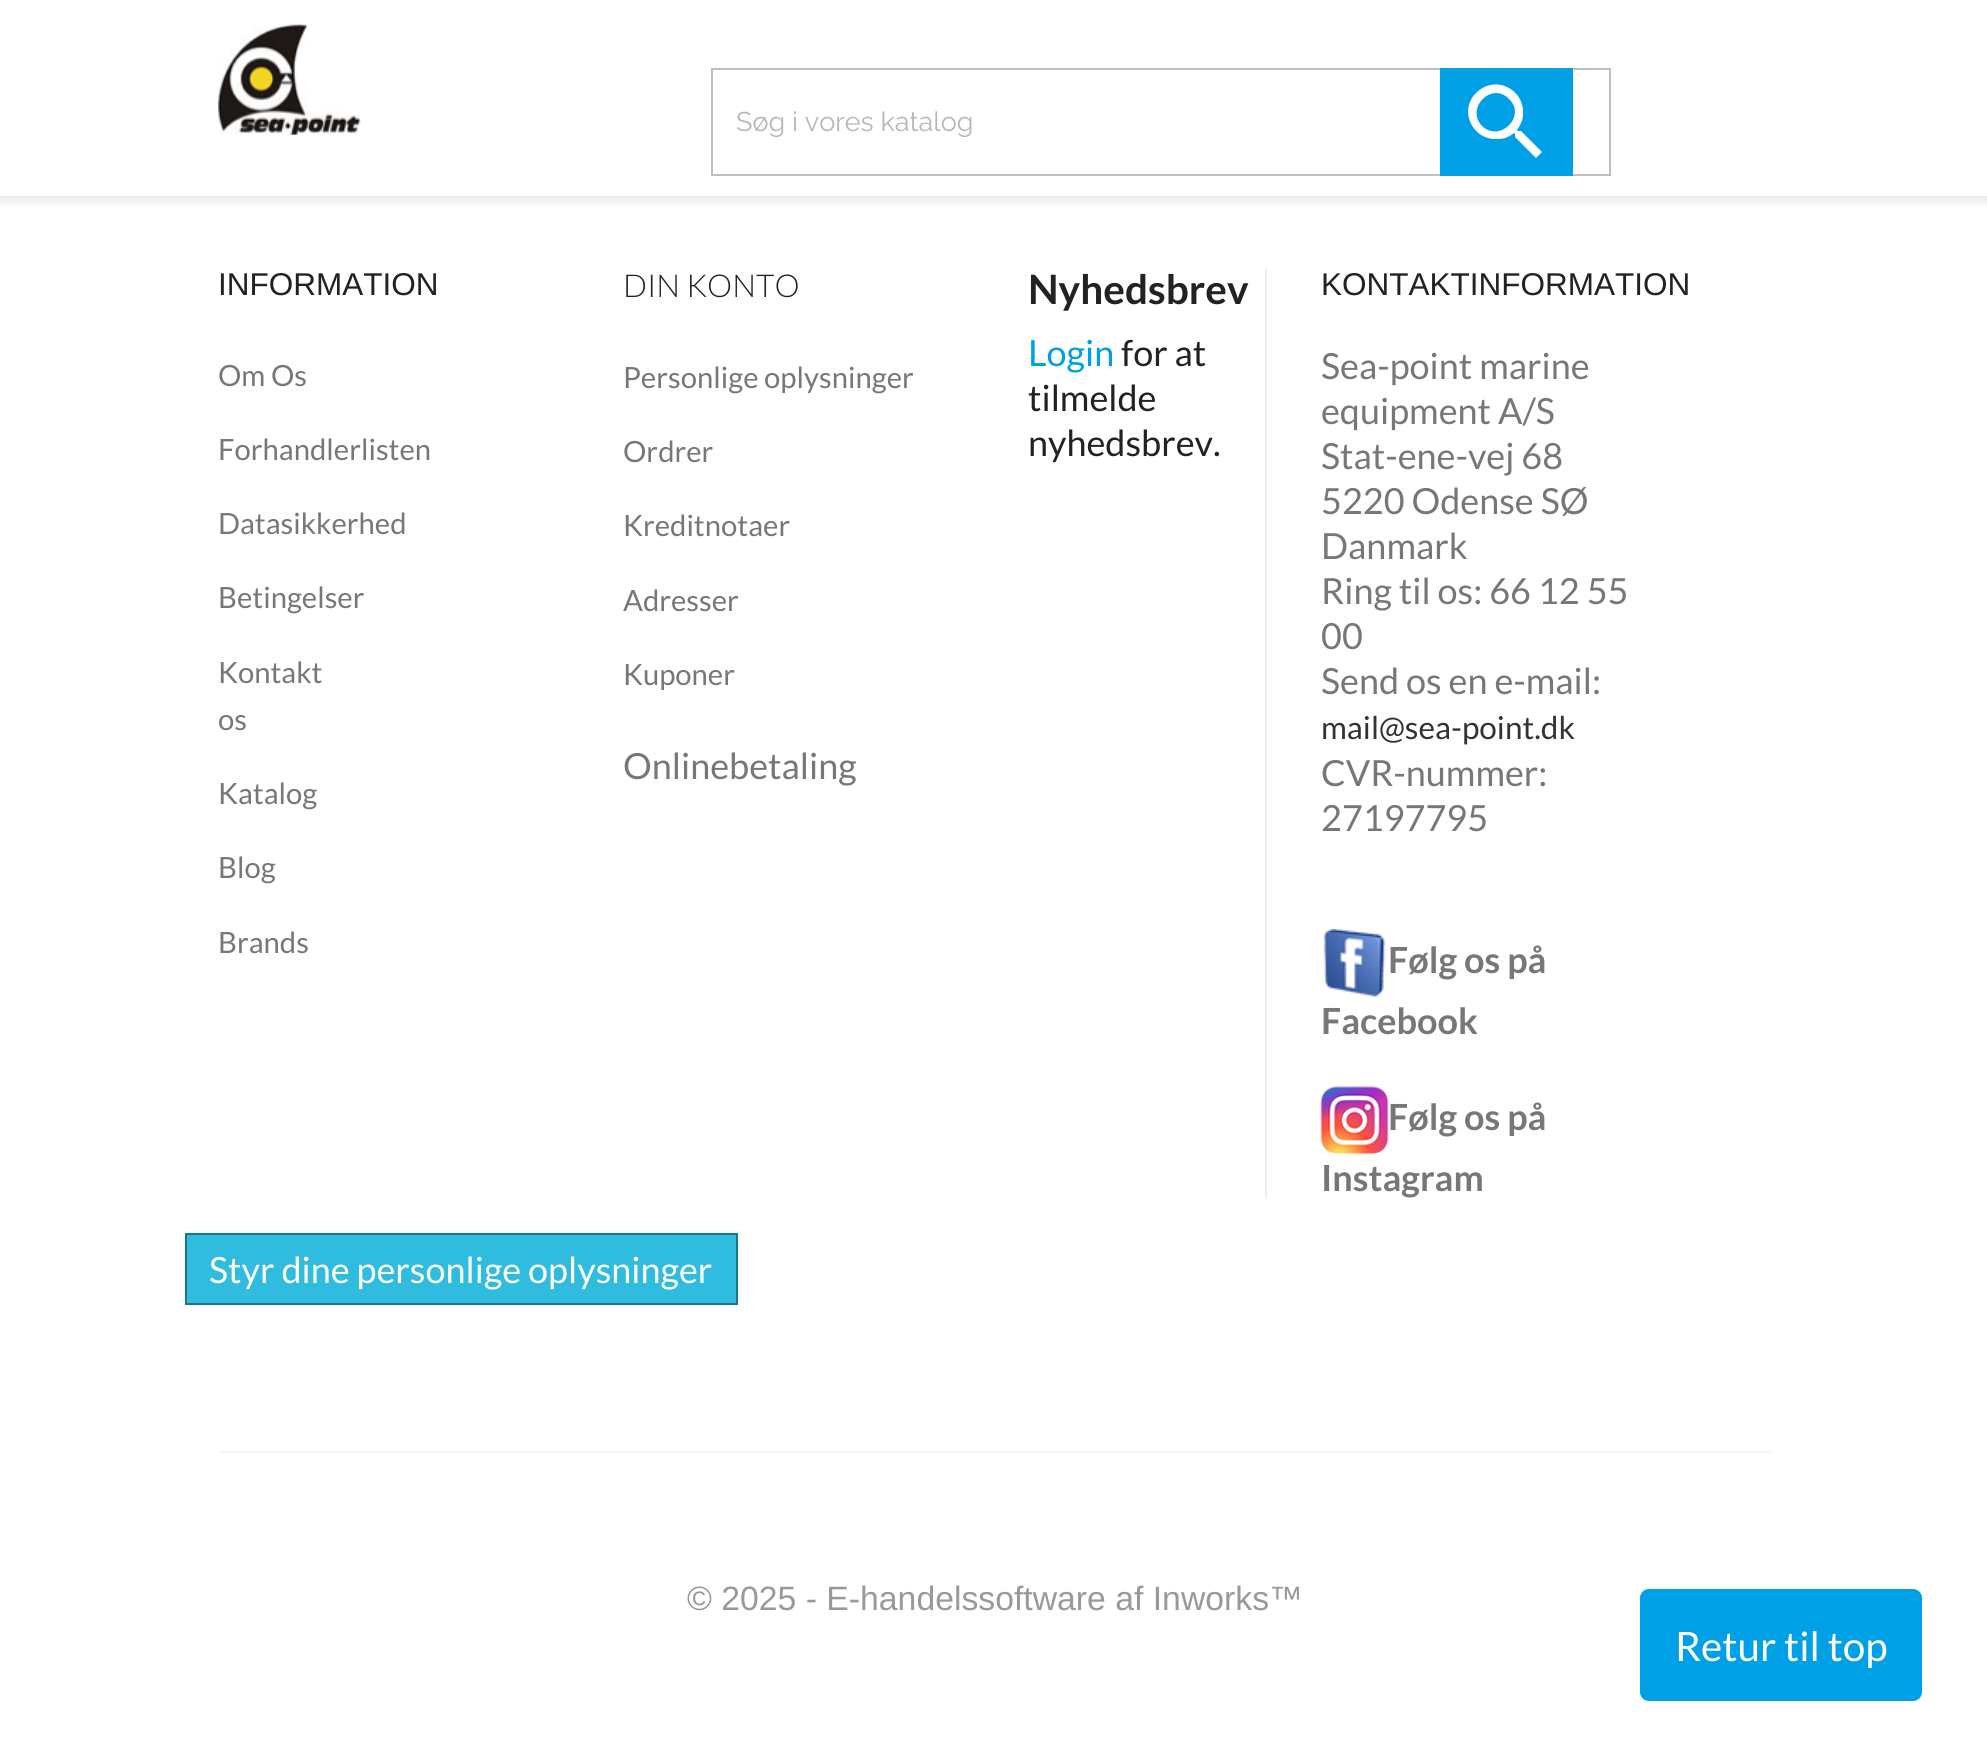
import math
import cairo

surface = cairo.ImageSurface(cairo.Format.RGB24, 1987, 1744)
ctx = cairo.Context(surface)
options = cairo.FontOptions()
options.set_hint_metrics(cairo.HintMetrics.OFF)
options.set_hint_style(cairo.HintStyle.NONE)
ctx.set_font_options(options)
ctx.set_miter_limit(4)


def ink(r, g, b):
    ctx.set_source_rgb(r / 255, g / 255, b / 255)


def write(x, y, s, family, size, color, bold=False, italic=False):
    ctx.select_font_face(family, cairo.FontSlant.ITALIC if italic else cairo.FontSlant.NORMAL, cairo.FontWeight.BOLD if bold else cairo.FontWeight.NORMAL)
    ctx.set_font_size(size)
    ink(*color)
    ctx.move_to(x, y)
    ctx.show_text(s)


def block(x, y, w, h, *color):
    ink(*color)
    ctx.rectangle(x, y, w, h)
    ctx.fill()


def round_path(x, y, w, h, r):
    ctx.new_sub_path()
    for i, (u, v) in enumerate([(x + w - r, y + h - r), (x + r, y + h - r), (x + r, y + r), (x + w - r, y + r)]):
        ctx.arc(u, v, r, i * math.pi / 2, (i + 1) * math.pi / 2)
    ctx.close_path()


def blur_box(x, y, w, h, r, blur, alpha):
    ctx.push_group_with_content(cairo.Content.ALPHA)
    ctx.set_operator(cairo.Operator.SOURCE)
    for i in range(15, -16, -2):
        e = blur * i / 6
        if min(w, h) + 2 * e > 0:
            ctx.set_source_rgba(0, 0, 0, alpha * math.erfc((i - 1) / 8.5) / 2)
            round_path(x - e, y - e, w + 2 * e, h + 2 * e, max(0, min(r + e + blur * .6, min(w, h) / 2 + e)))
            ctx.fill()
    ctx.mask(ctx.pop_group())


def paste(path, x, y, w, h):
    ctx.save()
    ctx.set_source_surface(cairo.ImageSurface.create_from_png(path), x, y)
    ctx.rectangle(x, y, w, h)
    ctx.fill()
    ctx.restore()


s1 = dict(family="Raleway Thin", size=27, color=(183, 183, 183))
s2 = dict(family="Liberation Sans", size=31.5, color=(34, 34, 34))
s3 = dict(family="Lato", size=29.25, color=(119, 119, 119))
s4 = dict(family="Lato Light", size=31.5, color=(34, 34, 34))
s5 = dict(family="Lato", size=36, color=(119, 119, 119))
s6 = dict(family="Lato", size=40.5, color=(34, 34, 34), bold=True)
s7 = dict(family="Lato", size=36, color=(0, 160, 230))
s8 = dict(family="Lato", size=36, color=(34, 34, 34))
s9 = dict(family="Lato", size=31.5, color=(51, 51, 51))
s10 = dict(family="Lato", size=36, color=(119, 119, 119), bold=True)
s11 = dict(family="Lato", size=36, color=(255, 255, 255))
s12 = dict(family="Liberation Sans", size=33.75, color=(153, 153, 153))
s13 = dict(family="Lato", size=40.5, color=(255, 255, 255))

ink(255, 255, 255)
ctx.paint()
ink(0, 0, 0)
blur_box(0, 5, 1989, 195, 0, 5.5, 0.11)
block(0, 0, 1987, 196, 255, 255, 255)
paste("pic1.png", 218, 24, 143, 111)
ctx.rectangle(712, 69, 898, 106)
ink(191, 191, 191)
ctx.stroke()
write(736, 131, "Søg i vores katalog", **s1)
block(1440, 68, 133, 108, 0, 160, 230)
ink(255, 255, 255)
ctx.new_path()
ctx.move_to(1482, 126)
ctx.curve_to(1500, 143, 1527, 116, 1509, 99)
ctx.curve_to(1492, 81, 1465, 108, 1482, 126)
ctx.close_path()
ctx.move_to(1521, 131)
ctx.line_to(1542, 152)
ctx.line_to(1536, 158)
ctx.line_to(1515, 137)
ctx.line_to(1515, 134)
ctx.line_to(1514, 133)
ctx.curve_to(1509, 137, 1504, 139, 1498, 139)
ctx.curve_to(1473, 141, 1458, 111, 1476, 93)
ctx.curve_to(1495, 74, 1525, 89, 1523, 115)
ctx.curve_to(1523, 120, 1520, 126, 1517, 130)
ctx.line_to(1518, 131)
ctx.close_path()
ctx.fill()
write(218, 295, "INFORMATION", **s2)
write(218, 386, "Om Os", **s3)
write(218, 460, "Forhandlerlisten", **s3)
write(218, 534, "Datasikkerhed", **s3)
write(218, 608, "Betingelser", **s3)
write(218, 683, "Kontakt", **s3)
write(218, 730, "os", **s3)
write(218, 804, "Katalog", **s3)
write(218, 878, "Blog", **s3)
write(218, 953, "Brands", **s3)
write(623, 297, "DIN KONTO", **s4)
write(623, 388, "Personlige oplysninger", **s3)
write(623, 462, "Ordrer", **s3)
write(623, 536, "Kreditnotaer", **s3)
write(623, 611, "Adresser", **s3)
write(623, 685, "Kuponer", **s3)
write(623, 779, "Onlinebetaling", **s5)
write(1028, 304, "Nyhedsbrev", **s6)
write(1028, 366, "Login", **s7)
write(1121, 366, "for at", **s8)
write(1028, 411, "tilmelde", **s8)
write(1028, 456, "nyhedsbrev.", **s8)
block(1265, 268, 2, 931, 238, 238, 238)
write(1321, 295, "KONTAKTINFORMATION", **s2)
write(1321, 379, "Sea-point marine", **s5)
write(1321, 424, "equipment A/S", **s5)
write(1321, 469, "Stat-ene-vej 68", **s5)
write(1321, 514, "5220 Odense SØ", **s5)
write(1321, 559, "Danmark", **s5)
write(1321, 604, "Ring til os: 66 12 55", **s5)
write(1321, 649, "00", **s5)
write(1321, 694, "Send os en e-mail:", **s5)
write(1321, 739, "mail@sea-point.dk", **s9)
write(1321, 786, "CVR-nummer:", **s5)
write(1321, 831, "27197795", **s5)
paste("pic2.png", 1323, 929, 63, 68)
write(1388, 973, "Følg os på", **s10)
write(1321, 1034, "Facebook", **s10)
paste("pic3.png", 1320, 1086, 69, 68)
write(1388, 1130, "Følg os på", **s10)
write(1321, 1191, "Instagram", **s10)
ink(47, 188, 223)
ctx.rectangle(186, 1234, 551, 70)
ctx.fill_preserve()
ink(27, 118, 139)
ctx.stroke()
write(209, 1283, "Styr dine personlige oplysninger", **s11)
block(218, 1451, 1553, 2, 247, 247, 247)
write(687, 1610, "© 2025 - E-handelssoftware af Inworks™", **s12)
ink(0, 160, 230)
round_path(1640, 1589, 282, 112, 9)
ctx.fill()
write(1675, 1661, "Retur til top", **s13)
surface.write_to_png("screenshot.png")
